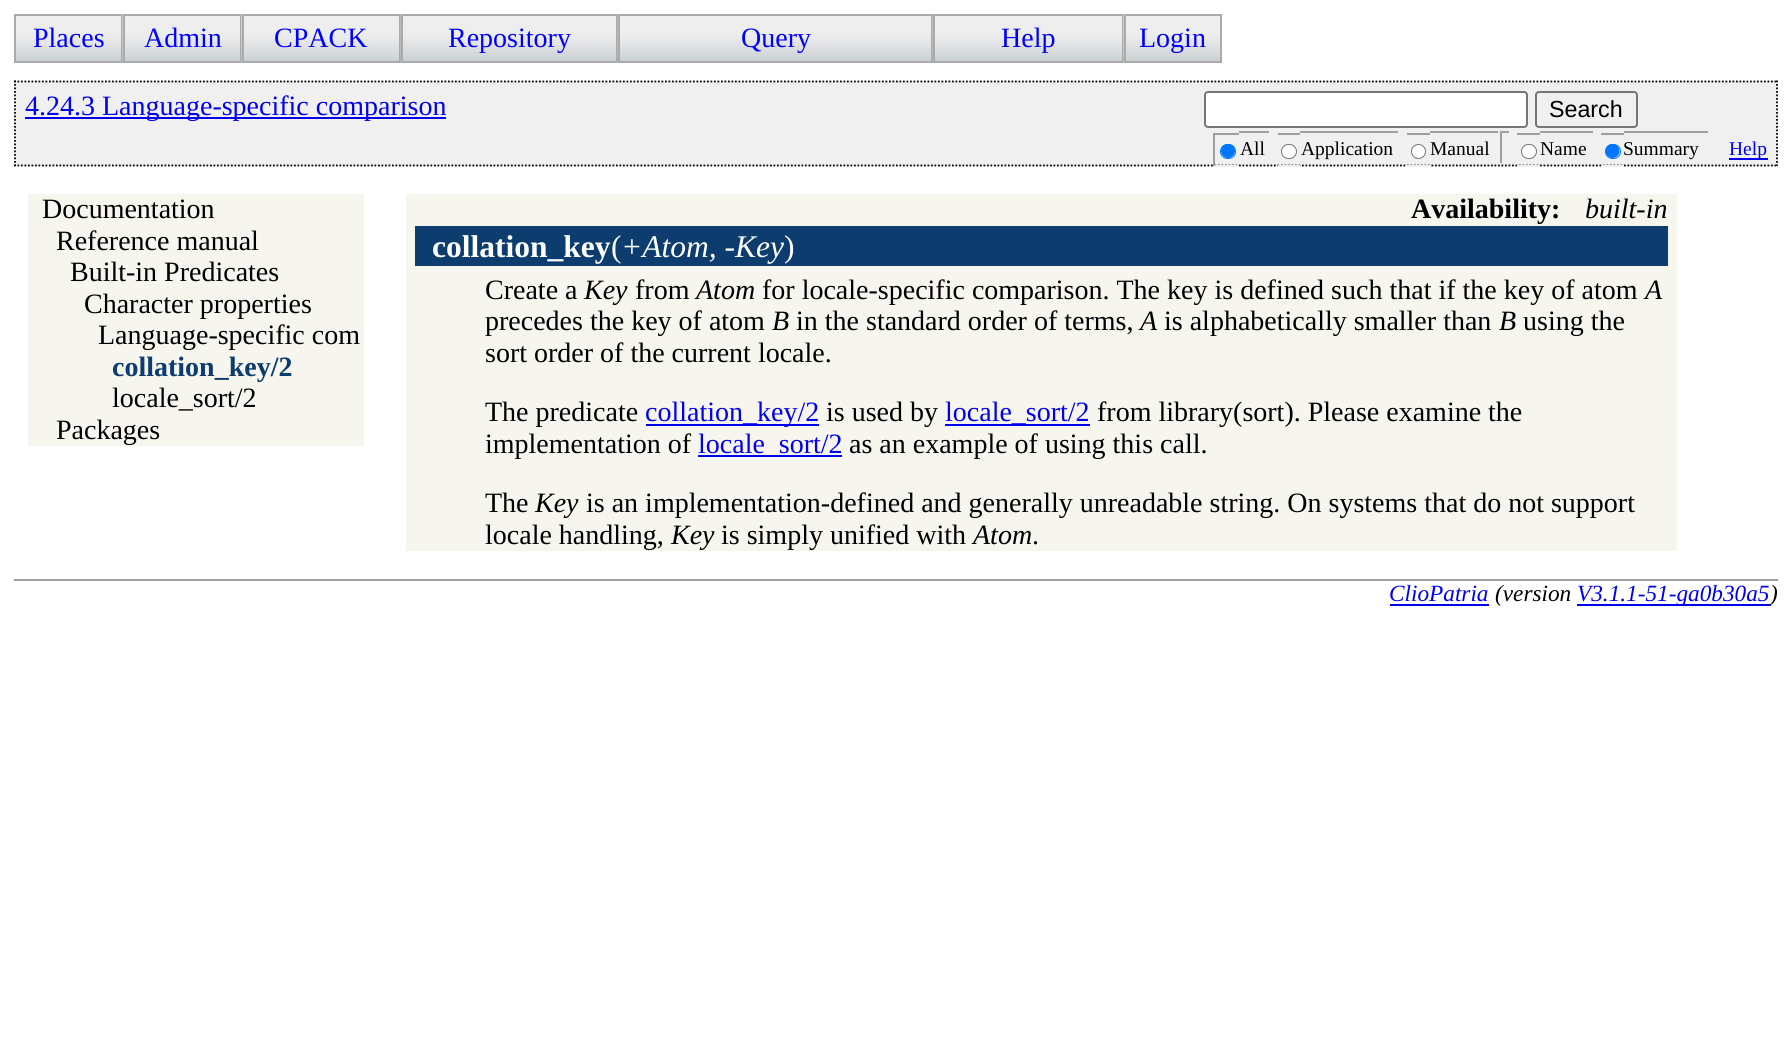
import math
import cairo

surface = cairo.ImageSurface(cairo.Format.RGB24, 1791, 1058)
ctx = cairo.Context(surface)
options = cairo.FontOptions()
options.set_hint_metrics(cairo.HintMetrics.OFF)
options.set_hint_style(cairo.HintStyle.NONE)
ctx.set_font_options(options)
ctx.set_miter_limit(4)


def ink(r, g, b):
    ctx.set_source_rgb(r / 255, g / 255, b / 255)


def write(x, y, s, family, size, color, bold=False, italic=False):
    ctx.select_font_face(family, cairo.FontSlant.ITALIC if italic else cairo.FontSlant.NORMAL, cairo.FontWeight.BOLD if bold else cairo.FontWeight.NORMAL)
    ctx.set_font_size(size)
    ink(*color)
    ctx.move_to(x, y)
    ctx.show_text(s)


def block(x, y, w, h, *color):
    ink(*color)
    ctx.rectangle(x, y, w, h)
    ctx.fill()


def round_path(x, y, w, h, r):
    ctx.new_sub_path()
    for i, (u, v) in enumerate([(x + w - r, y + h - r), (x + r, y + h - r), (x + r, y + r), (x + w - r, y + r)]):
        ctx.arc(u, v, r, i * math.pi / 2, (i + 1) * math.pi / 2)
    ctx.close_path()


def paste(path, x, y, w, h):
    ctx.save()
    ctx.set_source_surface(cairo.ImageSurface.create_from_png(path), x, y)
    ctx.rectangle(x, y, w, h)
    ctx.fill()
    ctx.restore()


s1 = dict(family="Liberation Serif", size=28, color=(0, 0, 255))
s2 = dict(family="Liberation Serif", size=28, color=(0, 0, 238))
s3 = dict(family="Liberation Sans", size=23.25, color=(0, 0, 0))
s4 = dict(family="Liberation Serif", size=19.5, color=(0, 0, 0))
s5 = dict(family="Liberation Serif", size=19.5, color=(0, 0, 238))
s6 = dict(family="Liberation Serif", size=28, color=(0, 0, 0))
s7 = dict(family="Liberation Serif", size=28, color=(12, 61, 110), bold=True)
s8 = dict(family="Liberation Serif", size=28, color=(0, 0, 0), bold=True)
s9 = dict(family="Liberation Serif", size=28, color=(0, 0, 0), italic=True)
s10 = dict(family="Liberation Serif", size=31.5, color=(255, 255, 255), bold=True)
s11 = dict(family="Liberation Serif", size=31.5, color=(255, 255, 255))
s12 = dict(family="Liberation Serif", size=31.5, color=(255, 255, 255), italic=True)
s13 = dict(family="Liberation Serif", size=23.25, color=(0, 0, 238), italic=True)
s14 = dict(family="Liberation Serif", size=23.25, color=(0, 0, 0), italic=True)

ink(255, 255, 255)
ctx.paint()
paste("pic1.png", 16, 16, 105, 45)
ctx.rectangle(15, 15, 107, 47)
ink(170, 170, 170)
ctx.stroke()
write(33, 47, "Places", **s1)
paste("pic2.png", 122, 14, 118, 49)
ctx.rectangle(124, 15, 117, 47)
ink(170, 170, 170)
ctx.stroke()
write(144, 47, "Admin", **s1)
paste("pic3.png", 241, 14, 158, 49)
ctx.rectangle(243, 15, 157, 47)
ink(170, 170, 170)
ctx.stroke()
write(274, 47, "CPACK", **s1)
paste("pic4.png", 400, 14, 216, 49)
ctx.rectangle(402, 15, 215, 47)
ink(170, 170, 170)
ctx.stroke()
write(448, 47, "Repository", **s1)
paste("pic5.png", 617, 14, 314, 49)
ctx.rectangle(619, 15, 313, 47)
ink(170, 170, 170)
ctx.stroke()
write(741, 47, "Query", **s1)
paste("pic6.png", 932, 14, 190, 49)
ctx.rectangle(934, 15, 189, 47)
ink(170, 170, 170)
ctx.stroke()
write(1001, 47, "Help", **s1)
paste("pic7.png", 1123, 14, 97, 49)
ctx.rectangle(1125, 15, 96, 47)
ink(170, 170, 170)
ctx.stroke()
write(1139, 47, "Login", **s1)
block(14, 81, 1764, 85, 240, 240, 240)
ctx.new_path()
ctx.move_to(14, 81.5)
ctx.line_to(1778, 81.5)
ink(0, 0, 0)
ctx.set_line_width(1.8)
ctx.set_dash([1.75, 1.75])
ctx.stroke()
ctx.new_path()
ctx.move_to(1777, 80.5)
ctx.line_to(1777, 166)
ctx.stroke()
ctx.new_path()
ctx.move_to(14, 165.5)
ctx.line_to(1778, 165.5)
ctx.stroke()
ctx.new_path()
ctx.move_to(15, 80.5)
ctx.line_to(15, 166)
ctx.stroke()
block(25, 117, 421, 2, 0, 0, 238)
write(25, 115, "4.24.3 Language-specific comparison", **s2)
ink(255, 255, 255)
round_path(1205, 92, 322, 35, 3)
ctx.fill_preserve()
ink(118, 118, 118)
ctx.set_line_width(2)
ctx.set_dash([])
ctx.stroke()
round_path(1536, 92, 101, 35, 3)
ctx.stroke()
write(1549, 117, "Search", **s3)
block(1213, 133, 26, 2, 159, 159, 159)
block(1213, 165, 26, 2, 238, 238, 238)
block(1213, 133, 2, 33, 159, 159, 159)
block(1239, 131, 30, 2, 159, 159, 159)
block(1278, 133, 22, 2, 159, 159, 159)
block(1278, 165, 22, 2, 238, 238, 238)
block(1300, 131, 98, 2, 159, 159, 159)
block(1407, 133, 23, 2, 159, 159, 159)
block(1407, 165, 23, 2, 238, 238, 238)
block(1430, 131, 79, 2, 159, 159, 159)
block(1498, 131, 2, 2, 238, 238, 238)
ink(255, 255, 255)
round_path(1220.5, 144.5, 15, 14, 7)
ctx.fill_preserve()
ink(0, 117, 255)
ctx.set_line_width(1)
ctx.stroke()
ctx.arc(1228, 151, 7, 0, 2 * math.pi)
ctx.fill()
write(1240, 155, "All", **s4)
ink(255, 255, 255)
round_path(1281.5, 144.5, 15, 14, 7)
ctx.fill_preserve()
ink(118, 118, 118)
ctx.stroke()
write(1301, 155, "Application", **s4)
ink(255, 255, 255)
ctx.new_path()
ctx.arc(1418.5, 151.5, 7, 0, 2 * math.pi)
ctx.fill_preserve()
ink(118, 118, 118)
ctx.stroke()
write(1430, 155, "Manual", **s4)
block(1500, 131, 2, 32, 159, 159, 159)
block(1517, 133, 23, 2, 159, 159, 159)
block(1517, 165, 23, 2, 238, 238, 238)
block(1540, 131, 53, 2, 159, 159, 159)
block(1601, 133, 23, 2, 159, 159, 159)
block(1601, 165, 23, 2, 238, 238, 238)
block(1624, 131, 86, 2, 159, 159, 159)
block(1708, 131, 2, 2, 238, 238, 238)
ink(255, 255, 255)
round_path(1521.5, 144.5, 15, 14, 7)
ctx.fill_preserve()
ink(118, 118, 118)
ctx.stroke()
write(1540, 155, "Name", **s4)
ink(255, 255, 255)
round_path(1605.5, 144.5, 15, 14, 7)
ctx.fill_preserve()
ink(0, 117, 255)
ctx.stroke()
ctx.arc(1612.5, 151, 7, 0, 2 * math.pi)
ctx.fill()
write(1623, 155, "Summary", **s4)
block(1729, 158, 39, 2, 0, 0, 238)
write(1729, 155, "Help", **s5)
block(28, 194, 336, 252, 246, 245, 238)
write(42, 218, "Documentation", **s6)
write(56, 250, "Reference manual", **s6)
write(70, 281, "Built-in Predicates", **s6)
write(84, 313, "Character properties", **s6)
write(98, 344, "Language-specific com", **s6)
write(112, 376, "collation_key/2", **s7)
write(112, 407, "locale_sort/2", **s6)
write(56, 439, "Packages", **s6)
block(406, 194, 1271, 357, 246, 245, 238)
write(1411, 218, "Availability:", **s8)
write(1585, 218, "built-in", **s9)
block(415, 226, 1253, 40, 12, 61, 110)
write(432, 257, "collation_key", **s10)
write(611, 257, "(", **s11)
write(621, 257, "+Atom, -Key", **s12)
write(784, 257, ")", **s11)
write(485, 299, "Create a", **s6)
write(584, 299, "Key", **s9)
write(635, 299, "from", **s6)
write(696, 299, "Atom", **s9)
write(762, 299, "for locale-specific comparison. The key is defined such that if the key of atom", **s6)
write(1645, 299, "A", **s9)
write(485, 330, "precedes the key of atom", **s6)
write(772, 330, "B", **s9)
write(796, 330, "in the standard order of terms,", **s6)
write(1140, 330, "A", **s9)
write(1164, 330, "is alphabetically smaller than", **s6)
write(1499, 330, "B", **s9)
write(1523, 330, "using the", **s6)
write(485, 362, "sort order of the current locale.", **s6)
write(485, 421, "The predicate", **s6)
block(646, 424, 173, 2, 0, 0, 238)
write(645, 421, "collation_key/2", **s2)
write(826, 421, "is used by", **s6)
block(945, 424, 145, 2, 0, 0, 238)
write(945, 421, "locale_sort/2", **s2)
write(1097, 421, "from library(sort). Please examine the", **s6)
write(485, 453, "implementation of", **s6)
block(698, 455, 144, 2, 0, 0, 238)
write(698, 453, "locale_sort/2", **s2)
write(849, 453, "as an example of using this call.", **s6)
write(485, 512, "The", **s6)
write(535, 512, "Key", **s9)
write(586, 512, "is an implementation-defined and generally unreadable string. On systems that do not support", **s6)
write(485, 544, "locale handling,", **s6)
write(671, 544, "Key", **s9)
write(721, 544, "is simply unified with", **s6)
write(973, 544, "Atom", **s9)
write(1032, 544, ".", **s6)
block(14, 579, 1764, 2, 160, 160, 160)
write(1389, 601, "ClioPatria", **s13)
block(1390, 604, 99, 2, 0, 0, 238)
write(1495, 601, "(version", **s14)
block(1577, 604, 194, 2, 0, 0, 238)
write(1577, 601, "V3.1.1-51-ga0b30a5", **s13)
write(1770, 601, ")", **s14)
surface.write_to_png("screenshot.png")
